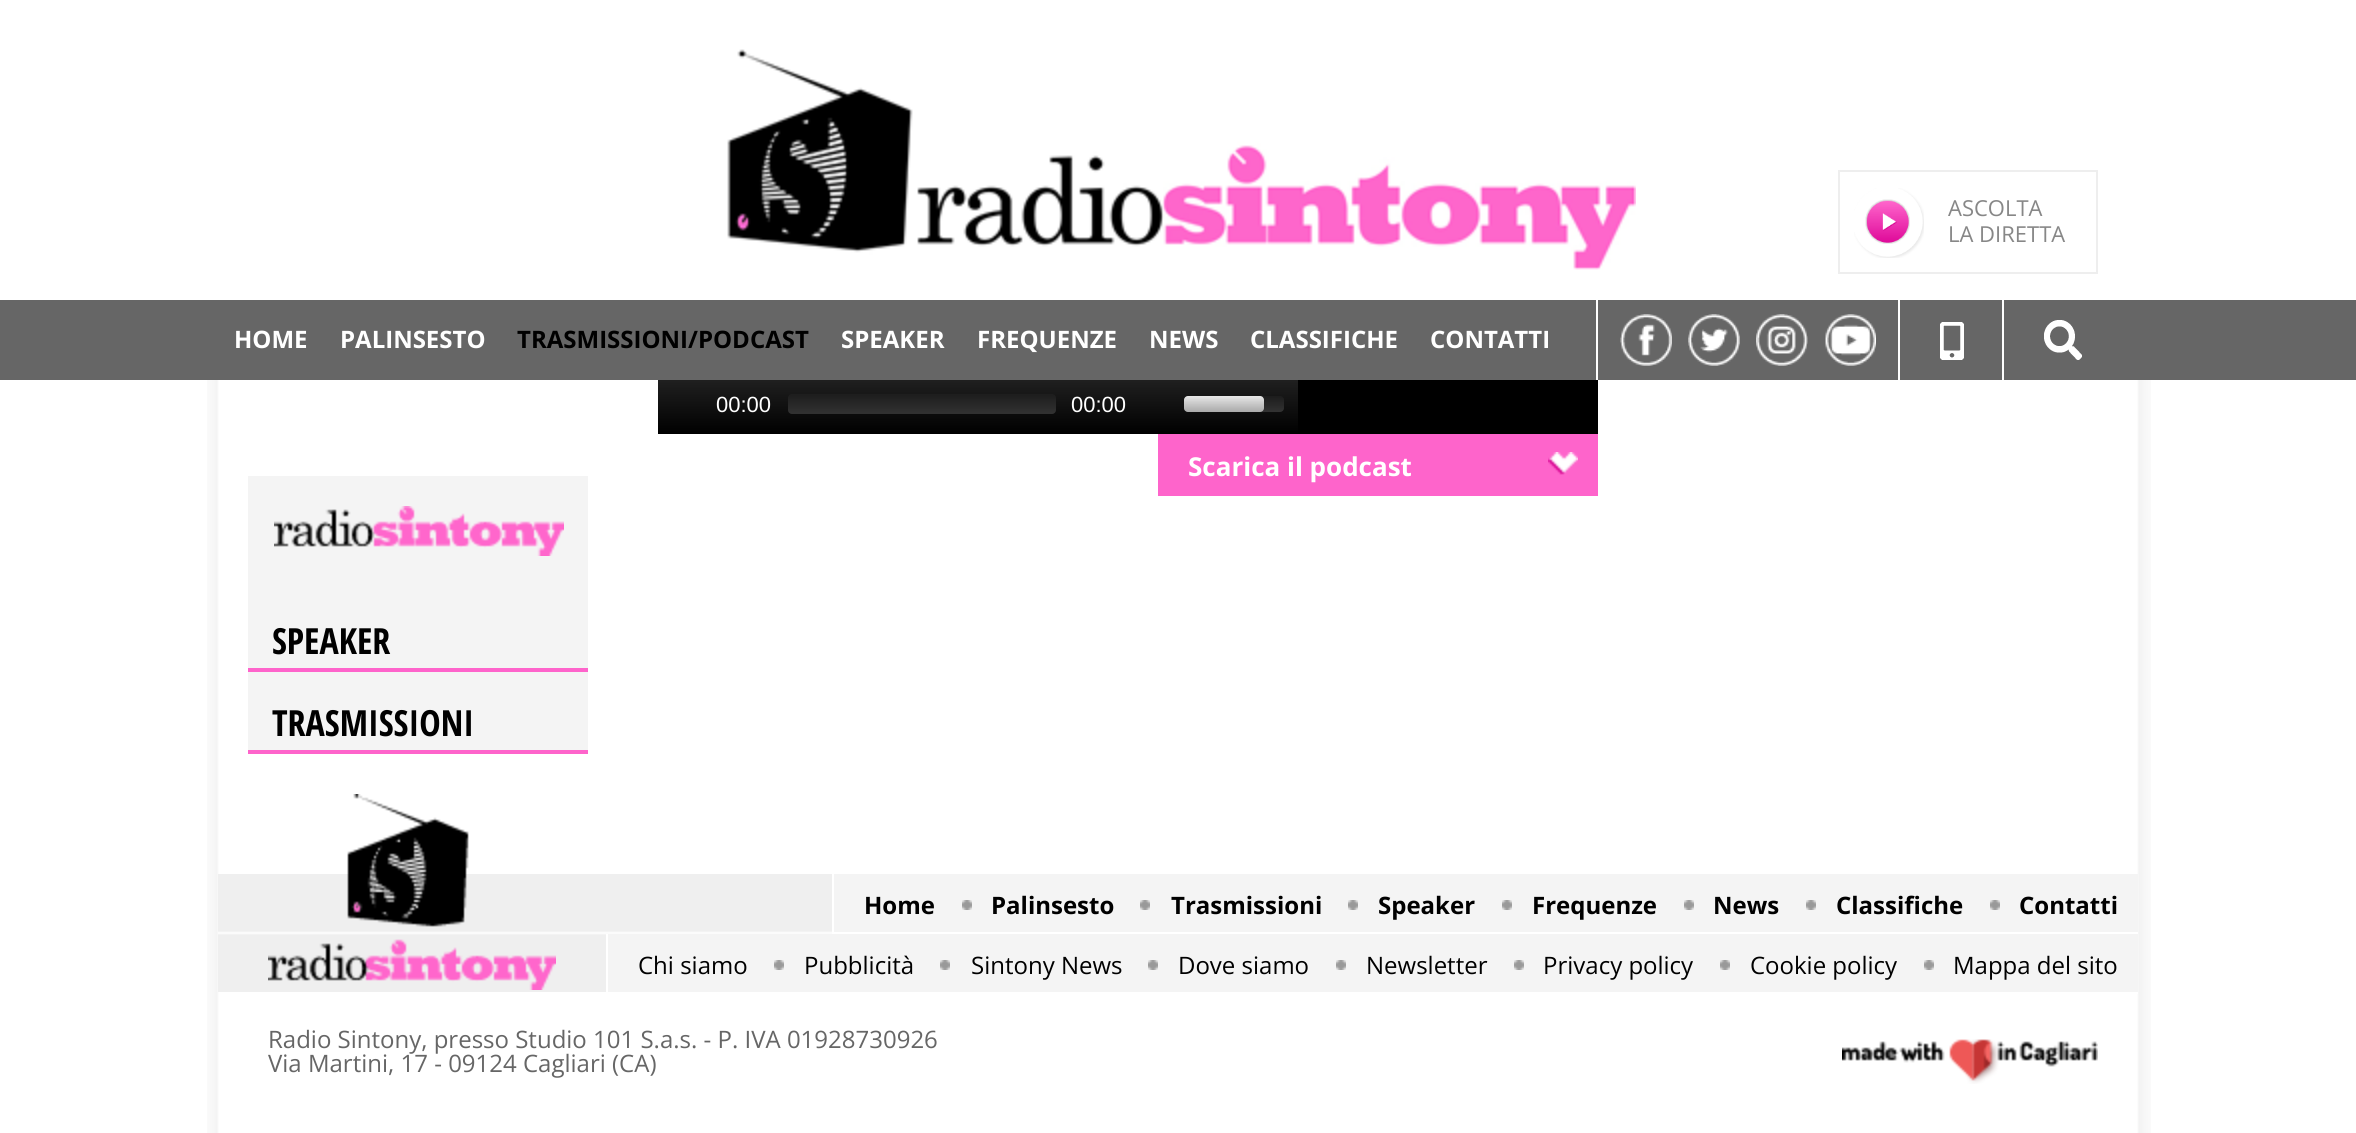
import math
import cairo

surface = cairo.ImageSurface(cairo.Format.RGB24, 2356, 1133)
ctx = cairo.Context(surface)
options = cairo.FontOptions()
options.set_hint_metrics(cairo.HintMetrics.OFF)
options.set_hint_style(cairo.HintStyle.NONE)
ctx.set_font_options(options)
ctx.set_miter_limit(4)


def ink(r, g, b):
    ctx.set_source_rgb(r / 255, g / 255, b / 255)


def write(x, y, s, family, size, color, bold=False, italic=False):
    ctx.select_font_face(family, cairo.FontSlant.ITALIC if italic else cairo.FontSlant.NORMAL, cairo.FontWeight.BOLD if bold else cairo.FontWeight.NORMAL)
    ctx.set_font_size(size)
    ink(*color)
    ctx.move_to(x, y)
    ctx.show_text(s)


def block(x, y, w, h, *color):
    ink(*color)
    ctx.rectangle(x, y, w, h)
    ctx.fill()


def round_path(x, y, w, h, r):
    ctx.new_sub_path()
    for i, (u, v) in enumerate([(x + w - r, y + h - r), (x + r, y + h - r), (x + r, y + r), (x + w - r, y + r)]):
        ctx.arc(u, v, r, i * math.pi / 2, (i + 1) * math.pi / 2)
    ctx.close_path()


def paste(path, x, y, w, h):
    ctx.save()
    ctx.set_source_surface(cairo.ImageSurface.create_from_png(path), x, y)
    ctx.rectangle(x, y, w, h)
    ctx.fill()
    ctx.restore()


s1 = dict(family="Open Sans", size=22, color=(135, 135, 135))
s2 = dict(family="Open Sans", size=24, color=(255, 255, 255), bold=True)
s3 = dict(family="Open Sans", size=24, color=(0, 0, 0), bold=True)
s4 = dict(family="Liberation Sans", size=22, color=(255, 255, 255))
s5 = dict(family="Open Sans", size=26, color=(255, 255, 255), bold=True)
s6 = dict(family="Open Sans Condensed", size=36, color=(0, 0, 0), bold=True)
s7 = dict(family="Open Sans", size=24, color=(0, 0, 0))
s8 = dict(family="Open Sans", size=24, color=(102, 102, 102))

ink(255, 255, 255)
ctx.paint()
paste("pic1.png", 207, 380, 1944, 753)
block(0, 300, 2356, 80, 102, 102, 102)
paste("pic2.png", 727, 49, 909, 221)
ctx.rectangle(1839, 171, 258, 102)
ink(238, 238, 238)
ctx.stroke()
paste("pic3.png", 1854, 188, 70, 70)
write(1948, 216, "ASCOLTA", **s1)
write(1948, 242, "LA DIRETTA", **s1)
block(1596, 300, 2, 80, 255, 255, 255)
write(234, 348, "HOME", **s2)
write(340, 348, "PALINSESTO", **s2)
write(517, 348, "TRASMISSIONI/PODCAST", **s3)
write(841, 348, "SPEAKER", **s2)
write(977, 348, "FREQUENZE", **s2)
write(1149, 348, "NEWS", **s2)
write(1250, 348, "CLASSIFICHE", **s2)
write(1430, 348, "CONTATTI", **s2)
block(1898, 300, 2, 88, 255, 255, 255)
paste("pic4.png", 1620, 314, 52, 52)
paste("pic5.png", 1688, 314, 52, 52)
paste("pic6.png", 1756, 314, 52, 52)
paste("pic7.png", 1825, 314, 51, 52)
block(2002, 300, 2, 80, 255, 255, 255)
paste("pic8.png", 1940, 322, 24, 38)
paste("pic9.png", 2044, 320, 38, 40)
block(1298, 380, 300, 54, 0, 0, 0)
gradient = cairo.LinearGradient(978, 374, 978, 434)
gradient.add_color_stop_rgba(0, 0.137, 0.137, 0.137, 1)
gradient.add_color_stop_rgba(1, 0, 0, 0, 1)
ctx.set_source(gradient)
ctx.rectangle(658, 380, 640, 54)
ctx.fill()
write(716, 412, "00:00", **s4)
gradient = cairo.LinearGradient(922, 394, 922, 414)
gradient.add_color_stop_rgba(0, 0.118, 0.118, 0.118, 0.8)
gradient.add_color_stop_rgba(1, 0.235, 0.235, 0.235, 0.8)
ctx.set_source(gradient)
round_path(788, 394, 268, 20, 4)
ctx.fill()
write(1071, 412, "00:00", **s4)
gradient = cairo.LinearGradient(1234, 396, 1234, 412)
gradient.add_color_stop_rgba(0, 0.118, 0.118, 0.118, 0.8)
gradient.add_color_stop_rgba(1, 0.235, 0.235, 0.235, 0.8)
ctx.set_source(gradient)
round_path(1184, 396, 100, 16, 4)
ctx.fill()
gradient = cairo.LinearGradient(1224, 396, 1224, 412)
gradient.add_color_stop_rgba(0, 1, 1, 1, 0.9)
gradient.add_color_stop_rgba(1, 0.784, 0.784, 0.784, 0.8)
ctx.set_source(gradient)
round_path(1184, 396, 80, 16, 4)
ctx.fill()
block(1158, 434, 440, 62, 254, 100, 203)
paste("pic10.png", 1548, 452, 30, 23)
write(1188, 476, "Scarica il podcast", **s5)
block(248, 476, 340, 274, 244, 244, 244)
paste("pic11.png", 274, 506, 290, 50)
block(248, 668, 340, 4, 254, 100, 203)
write(272, 654, "SPEAKER", **s6)
block(248, 750, 340, 4, 254, 100, 203)
write(272, 736, "TRASMISSIONI", **s6)
paste("pic12.png", 218, 874, 614, 118)
paste("pic13.png", 268, 794, 288, 196)
block(834, 874, 1304, 58, 244, 244, 244)
block(2137, 932, 1, 2, 255, 255, 255)
write(864, 914, "Home", **s3)
paste("pic14.png", 962, 900, 10, 10)
write(991, 914, "Palinsesto", **s3)
paste("pic14.png", 1140, 900, 10, 10)
write(1171, 914, "Trasmissioni", **s3)
paste("pic14.png", 1348, 900, 10, 10)
write(1378, 914, "Speaker", **s3)
paste("pic14.png", 1502, 900, 10, 10)
write(1532, 914, "Frequenze", **s3)
paste("pic14.png", 1684, 900, 10, 10)
write(1713, 914, "News", **s3)
paste("pic14.png", 1806, 900, 10, 10)
write(1836, 914, "Classifiche", **s3)
paste("pic14.png", 1990, 900, 10, 10)
write(2019, 914, "Contatti", **s3)
block(608, 934, 1530, 58, 244, 244, 244)
block(2137, 992, 1, 2, 255, 255, 255)
block(606, 934, 2, 60, 255, 255, 255)
write(638, 974, "Chi siamo", **s7)
paste("pic14.png", 774, 960, 10, 10)
write(804, 974, "Pubblicità", **s7)
paste("pic14.png", 940, 960, 10, 10)
write(971, 974, "Sintony News", **s7)
paste("pic14.png", 1148, 960, 10, 10)
write(1178, 974, "Dove siamo", **s7)
paste("pic14.png", 1336, 960, 10, 10)
write(1366, 974, "Newsletter", **s7)
paste("pic14.png", 1514, 960, 10, 10)
write(1543, 974, "Privacy policy", **s7)
paste("pic14.png", 1720, 960, 10, 10)
write(1750, 974, "Cookie policy", **s7)
paste("pic14.png", 1924, 960, 10, 10)
write(1953, 974, "Mappa del sito", **s7)
write(268, 1048, "Radio Sintony, presso Studio 101 S.a.s. - P. IVA 01928730926", **s8)
write(268, 1072, "Via Martini, 17 - 09124 Cagliari (CA)", **s8)
paste("pic15.png", 1842, 1039, 256, 45)
surface.write_to_png("screenshot.png")
